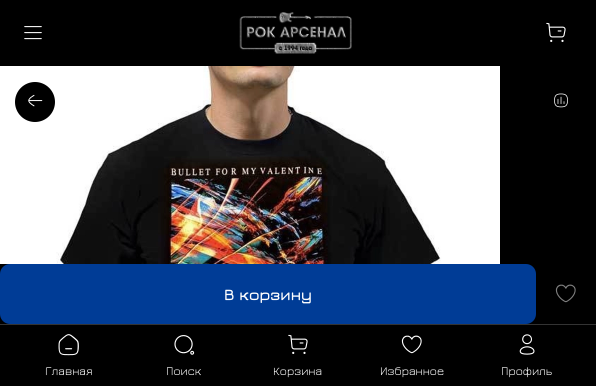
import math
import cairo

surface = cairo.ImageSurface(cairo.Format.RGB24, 596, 386)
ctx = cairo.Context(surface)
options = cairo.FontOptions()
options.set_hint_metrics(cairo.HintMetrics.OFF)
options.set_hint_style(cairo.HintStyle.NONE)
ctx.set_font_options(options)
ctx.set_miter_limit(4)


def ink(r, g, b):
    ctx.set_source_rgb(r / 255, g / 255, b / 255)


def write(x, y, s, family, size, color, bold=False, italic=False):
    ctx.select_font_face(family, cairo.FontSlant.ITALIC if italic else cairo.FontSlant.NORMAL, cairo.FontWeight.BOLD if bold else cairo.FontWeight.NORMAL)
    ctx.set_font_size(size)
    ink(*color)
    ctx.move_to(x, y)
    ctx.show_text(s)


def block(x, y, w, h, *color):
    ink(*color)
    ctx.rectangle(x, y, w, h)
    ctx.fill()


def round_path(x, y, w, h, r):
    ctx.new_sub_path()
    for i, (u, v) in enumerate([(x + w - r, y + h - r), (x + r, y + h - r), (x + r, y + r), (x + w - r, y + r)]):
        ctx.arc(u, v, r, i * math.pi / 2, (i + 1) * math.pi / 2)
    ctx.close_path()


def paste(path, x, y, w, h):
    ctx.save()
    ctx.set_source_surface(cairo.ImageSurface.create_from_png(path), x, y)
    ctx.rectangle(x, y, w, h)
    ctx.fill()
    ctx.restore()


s1 = dict(family="Jura", size=16, color=(255, 255, 255), bold=True)
s2 = dict(family="Jura", size=12, color=(255, 255, 255))

ink(0, 0, 0)
ctx.paint()
paste("pic1.png", 24, 26, 18, 14)
paste("pic2.png", 239, 12, 113, 42)
paste("pic3.png", 546, 22, 20, 20)
paste("pic4.png", 0, 66, 500, 198)
ink(0, 0, 0)
ctx.arc(35, 102, 20, 0, 2 * math.pi)
ctx.fill()
paste("pic5.png", 28, 94, 15, 13)
paste("pic6.png", 554, 93, 14, 15)
ink(0, 60, 150)
round_path(0, 264, 536, 60, 10)
ctx.fill()
write(224, 300, "В корзину", **s1)
paste("pic7.png", 555, 284, 21, 19)
block(0, 324, 596, 1, 51, 51, 51)
paste("pic8.png", 58, 334, 21, 22)
write(45, 375, "Главная", **s2)
paste("pic9.png", 174, 335, 21, 20)
write(166, 375, "Поиск", **s2)
paste("pic3.png", 288, 334, 20, 20)
write(273, 375, "Корзина", **s2)
paste("pic10.png", 401, 335, 21, 19)
write(380, 375, "Избранное", **s2)
paste("pic11.png", 519, 334, 16, 21)
write(501, 375, "Профиль", **s2)
surface.write_to_png("screenshot.png")
